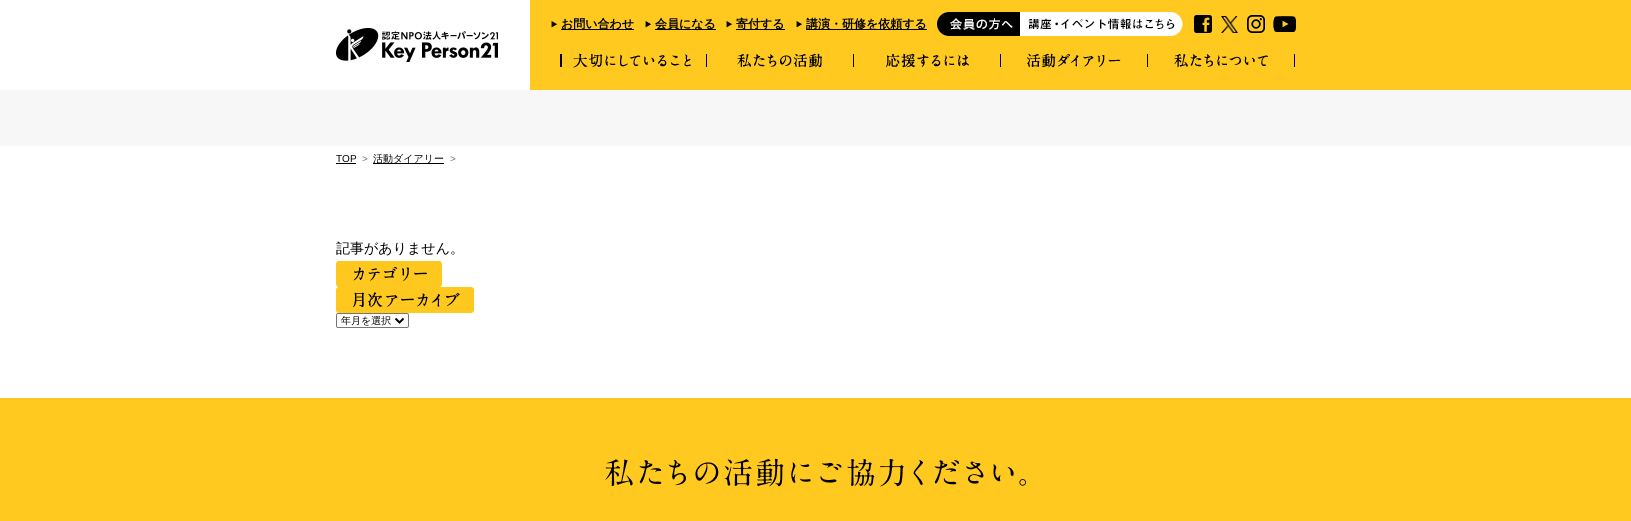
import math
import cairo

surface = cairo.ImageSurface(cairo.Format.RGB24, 1631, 521)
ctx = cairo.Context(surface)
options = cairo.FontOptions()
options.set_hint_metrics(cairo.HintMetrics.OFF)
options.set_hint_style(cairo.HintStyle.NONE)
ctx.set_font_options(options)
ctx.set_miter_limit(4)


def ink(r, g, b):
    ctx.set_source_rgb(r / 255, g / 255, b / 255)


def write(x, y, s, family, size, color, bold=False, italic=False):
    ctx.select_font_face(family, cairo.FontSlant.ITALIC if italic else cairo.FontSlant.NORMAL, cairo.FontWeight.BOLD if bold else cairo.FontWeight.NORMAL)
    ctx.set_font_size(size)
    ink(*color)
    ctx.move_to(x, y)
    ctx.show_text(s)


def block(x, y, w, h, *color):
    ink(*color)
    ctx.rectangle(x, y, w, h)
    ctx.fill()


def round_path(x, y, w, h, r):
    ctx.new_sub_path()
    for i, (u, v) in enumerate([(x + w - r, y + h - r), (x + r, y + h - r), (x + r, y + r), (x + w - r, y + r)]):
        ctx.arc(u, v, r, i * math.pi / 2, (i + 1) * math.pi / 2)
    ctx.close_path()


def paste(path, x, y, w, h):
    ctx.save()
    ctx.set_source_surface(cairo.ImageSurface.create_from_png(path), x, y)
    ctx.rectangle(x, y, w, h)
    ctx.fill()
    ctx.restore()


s1 = dict(family="WenQuanYi Zen Hei", size=12, color=(0, 0, 0), bold=True)
s2 = dict(family="Liberation Sans", size=10, color=(0, 0, 0))
s3 = dict(family="Liberation Sans", size=10, color=(121, 121, 121))
s4 = dict(family="WenQuanYi Zen Hei Medium", size=10, color=(0, 0, 0))
s5 = dict(family="WenQuanYi Zen Hei Medium", size=14, color=(0, 0, 0))

ink(255, 255, 255)
ctx.paint()
block(530, 0, 1101, 90, 255, 201, 31)
paste("pic1.png", 551, 21, 6, 7)
block(561, 29, 73, 1, 0, 0, 0)
write(561, 28, "お問い合わせ", **s1)
paste("pic1.png", 645, 21, 6, 7)
block(655, 29, 61, 1, 0, 0, 0)
write(655, 28, "会員になる", **s1)
paste("pic1.png", 726, 21, 6, 7)
block(736, 29, 49, 1, 0, 0, 0)
write(736, 28, "寄付する", **s1)
paste("pic1.png", 796, 21, 6, 7)
block(806, 29, 121, 1, 0, 0, 0)
write(806, 28, "講演・研修を依頼する", **s1)
paste("pic2.png", 937, 12, 246, 24)
paste("pic3.png", 1194, 15, 18, 18)
paste("pic4.png", 1221, 16, 17, 17)
paste("pic5.png", 1247, 15, 18, 18)
paste("pic6.png", 1273, 16, 23, 16)
block(560, 54, 2, 13, 0, 0, 0)
block(706, 54, 1, 13, 0, 0, 0)
paste("pic7.png", 573, 53, 119, 15)
block(853, 54, 1, 13, 0, 0, 0)
paste("pic8.png", 737, 53, 85, 15)
block(1000, 54, 1, 13, 0, 0, 0)
paste("pic9.png", 886, 53, 83, 15)
block(1147, 54, 1, 13, 0, 0, 0)
paste("pic10.png", 1027, 53, 94, 15)
block(1294, 54, 1, 13, 0, 0, 0)
paste("pic11.png", 1174, 54, 94, 14)
paste("pic12.png", 336, 28, 162, 34)
block(0, 90, 1631, 56, 247, 247, 247)
write(336, 162, "TOP", **s2)
block(336, 163, 20, 1, 0, 0, 0)
write(362, 162, ">", **s3)
block(373, 163, 71, 1, 0, 0, 0)
write(373, 162, "活動ダイアリー", **s4)
write(450, 162, ">", **s3)
write(336, 253, "記事がありません。", **s5)
paste("pic13.png", 336, 261, 106, 26)
paste("pic14.png", 336, 287, 138, 26)
round_path(336.5, 313.5, 72, 14, 1.5)
ink(118, 118, 118)
ctx.set_line_width(1)
ctx.stroke()
ctx.new_path()
ctx.move_to(395.5, 318.5)
ctx.line_to(399.5, 322.5)
ctx.line_to(403.5, 318.5)
ink(0, 0, 0)
ctx.set_line_width(2)
ctx.stroke()
write(341, 324, "年月を選択", **s4)
block(0, 398, 1631, 123, 255, 201, 31)
paste("pic15.png", 605, 458, 421, 29)
surface.write_to_png("screenshot.png")
